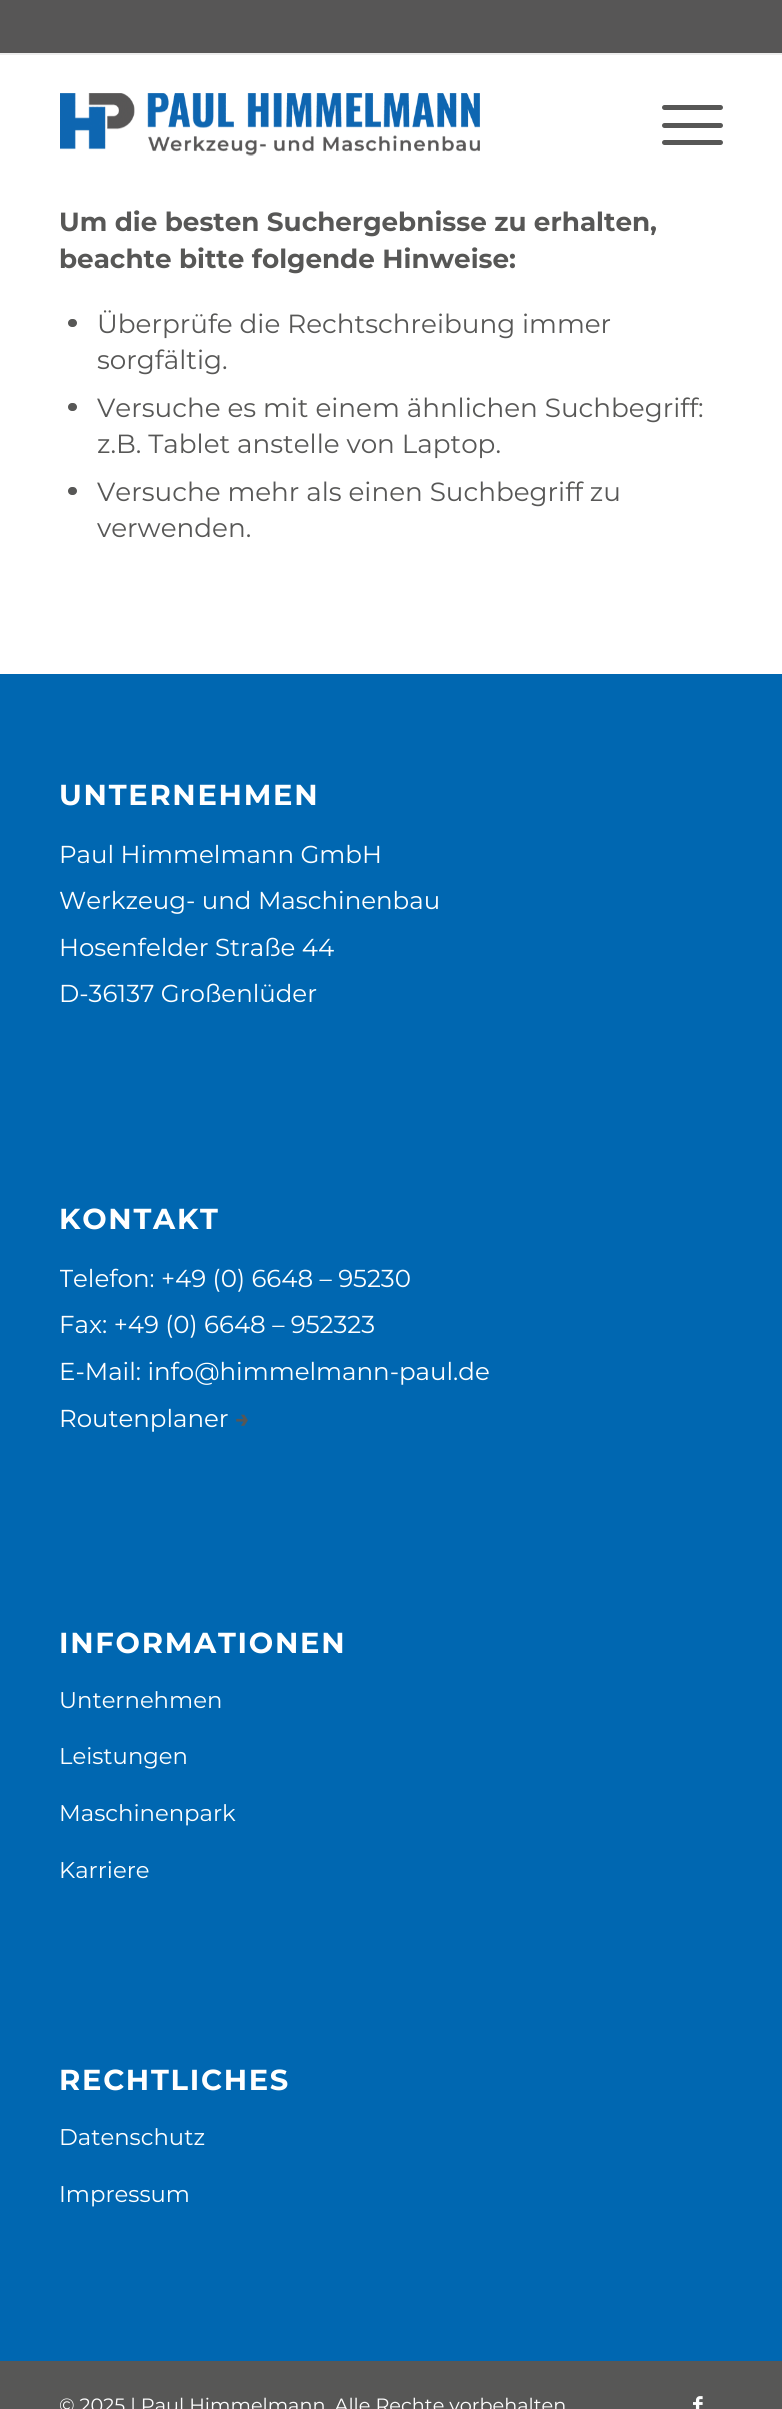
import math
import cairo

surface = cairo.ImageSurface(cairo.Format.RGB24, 782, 2409)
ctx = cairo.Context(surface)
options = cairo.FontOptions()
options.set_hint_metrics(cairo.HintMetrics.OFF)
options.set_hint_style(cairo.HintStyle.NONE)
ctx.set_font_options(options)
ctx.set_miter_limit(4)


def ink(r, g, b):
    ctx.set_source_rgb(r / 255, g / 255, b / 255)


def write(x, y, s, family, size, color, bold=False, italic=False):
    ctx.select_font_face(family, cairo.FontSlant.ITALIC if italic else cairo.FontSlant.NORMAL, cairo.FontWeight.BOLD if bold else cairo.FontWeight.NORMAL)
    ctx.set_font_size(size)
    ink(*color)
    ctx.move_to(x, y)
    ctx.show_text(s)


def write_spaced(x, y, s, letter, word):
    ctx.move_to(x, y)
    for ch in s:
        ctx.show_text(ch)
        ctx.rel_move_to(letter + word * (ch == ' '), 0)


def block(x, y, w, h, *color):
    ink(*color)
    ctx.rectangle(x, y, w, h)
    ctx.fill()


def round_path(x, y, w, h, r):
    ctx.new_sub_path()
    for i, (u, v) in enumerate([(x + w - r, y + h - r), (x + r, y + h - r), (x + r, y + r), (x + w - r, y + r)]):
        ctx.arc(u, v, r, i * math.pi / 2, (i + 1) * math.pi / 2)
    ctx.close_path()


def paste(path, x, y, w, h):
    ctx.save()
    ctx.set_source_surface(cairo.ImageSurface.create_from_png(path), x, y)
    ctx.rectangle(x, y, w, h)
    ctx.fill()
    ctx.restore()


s1 = dict(family="Montserrat", size=26.25, color=(87, 87, 86), bold=True)
s2 = dict(family="Montserrat", size=26.25, color=(87, 87, 86))
s3 = dict(family="Montserrat", size=24.5, color=(255, 255, 255))
s4 = dict(family="Montserrat", size=24.5, color=(87, 87, 86), bold=True)
s5 = dict(family="Montserrat", size=22.75, color=(255, 255, 255))
s6 = dict(family="Montserrat", size=19.25, color=(255, 255, 255))

ink(255, 255, 255)
ctx.paint()
block(0, 0, 782, 53, 87, 86, 86)
block(0, 53, 782, 2, 237, 237, 237)
paste("pic1.png", 60, 93, 420, 63)
ink(87, 87, 86)
round_path(662, 123, 61, 5, 2.5)
ctx.fill()
round_path(662, 105, 61, 5, 2.5)
ctx.fill()
round_path(662, 140, 61, 5, 2.5)
ctx.fill()
write(59, 231, "Um die besten Suchergebnisse zu erhalten,", **s1)
write(59, 268, "beachte bitte folgende Hinweise:", **s1)
round_path(68, 319, 9, 8, 4)
ctx.fill()
write(97, 333, "Überprüfe die Rechtschreibung immer", **s2)
write(97, 369, "sorgfältig.", **s2)
round_path(68, 403, 9, 8, 4)
ctx.fill()
write(97, 417, "Versuche es mit einem ähnlichen Suchbegriff:", **s2)
write(97, 453, "z.B. Tablet anstelle von Laptop.", **s2)
round_path(68, 487, 9, 8, 4)
ctx.fill()
write(97, 501, "Versuche mehr als einen Suchbegriff zu", **s2)
write(97, 537, "verwenden.", **s2)
block(0, 674, 782, 1687, 0, 103, 177)
ctx.select_font_face("Montserrat", cairo.FontSlant.NORMAL, cairo.FontWeight.BOLD)
ctx.set_font_size(28.9)
ink(255, 255, 255)
write_spaced(59, 805, "UNTERNEHMEN", 1.75, 0)
write(59, 863, "Paul Himmelmann GmbH", **s3)
write(59, 909, "Werkzeug- und Maschinenbau", **s3)
write(59, 956, "Hosenfelder Straße 44", **s3)
write(59, 1002, "D-36137 Großenlüder", **s3)
ctx.select_font_face("Montserrat", cairo.FontSlant.NORMAL, cairo.FontWeight.BOLD)
ctx.set_font_size(28.9)
write_spaced(59, 1229, "KONTAKT", 1.75, 0)
ctx.save()
ctx.rectangle(60, 1178, 663, 285)
ctx.clip()
write(59, 1287, "Telefon:", **s3)
ctx.restore()
write(161, 1287, "+49 (0) 6648 – 95230", **s3)
write(59, 1333, "Fax: +49 (0) 6648 – 952323", **s3)
write(59, 1380, "E-Mail: info@himmelmann-paul.de", **s3)
write(59, 1427, "Routenplaner", **s3)
write(235, 1427, "→", **s4)
ctx.set_font_size(28.9)
ink(255, 255, 255)
write_spaced(59, 1653, "INFORMATIONEN", 1.75, 0)
write(59, 1708, "Unternehmen", **s5)
write(59, 1764, "Leistungen", **s5)
write(59, 1821, "Maschinenpark", **s5)
write(59, 1878, "Karriere", **s5)
ctx.select_font_face("Montserrat", cairo.FontSlant.NORMAL, cairo.FontWeight.BOLD)
ctx.set_font_size(28.9)
write_spaced(59, 2090, "RECHTLICHES", 1.75, 0)
write(59, 2145, "Datenschutz", **s5)
write(59, 2202, "Impressum", **s5)
block(0, 2361, 782, 48, 87, 87, 86)
write(59, 2412, "© 2025 | Paul Himmelmann, Alle Rechte vorbehalten", **s6)
paste("pic2.png", 693, 2396, 10, 13)
surface.write_to_png("screenshot.png")
